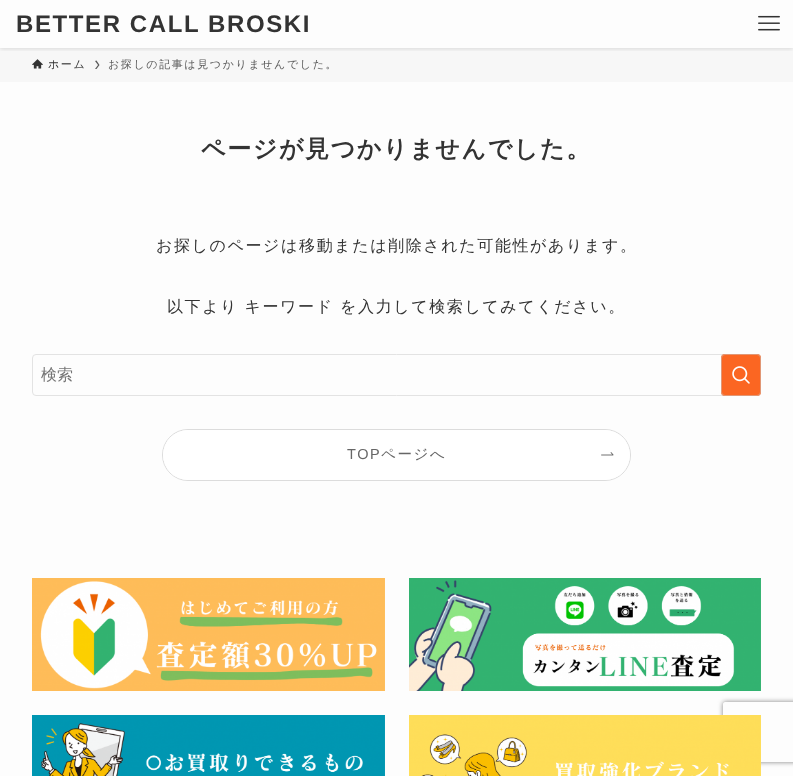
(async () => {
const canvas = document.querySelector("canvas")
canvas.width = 793
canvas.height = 776
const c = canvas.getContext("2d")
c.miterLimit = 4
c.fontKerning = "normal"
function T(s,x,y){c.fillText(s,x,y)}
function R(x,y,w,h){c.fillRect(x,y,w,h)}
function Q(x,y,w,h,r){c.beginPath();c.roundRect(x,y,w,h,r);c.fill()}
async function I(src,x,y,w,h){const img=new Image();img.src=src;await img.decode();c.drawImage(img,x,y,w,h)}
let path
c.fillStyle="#fdfdfd"
R(0,0,793,776)
c.fillStyle="#f7f7f7"
R(0,48,793,34)
c.save()
c.beginPath()
c.rect(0,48,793,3)
c.clip()
c.fillStyle="#0000001f"
c.filter="blur(2px)"
c.beginPath()
c.rect(0,1,793,48)
c.fill()
c.filter="none"
c.restore()
c.letterSpacing="1.6px"
c.font="bold 24px Liberation Sans"
c.fillStyle="#333"
T("BETTER CALL BROSKI",16,32)
await I("1.png",758,15,22,16)
await I("2.png",32,59,11,10)
c.font="500 11px WenQuanYi Zen Hei"
T("ホーム",48,68)
c.fillStyle="#5a5a5a"
path = new Path2D("M96.5 60.5l-1.5 .5l3 4l-3 4h1.5l3-4z")
c.fill(path)
T("お探しの記事は見つかりませんでした。",108,68)
c.font="bold 24px WenQuanYi Zen Hei"
c.fillStyle="#333"
T("ページが見つかりませんでした。",201,157)
c.font="500 16px WenQuanYi Zen Hei"
T("お探しのページは移動または削除された可能性があります。",156,251)
T("以下より キーワード を入力して検索してみてください。",167,312)
c.beginPath()
c.roundRect(32.5,354.5,728,41,3.5)
c.strokeStyle="#e3e3e3"
c.stroke()
c.letterSpacing="0px"
c.fillStyle="#757575"
T("検索",41,380)
c.fillStyle="#fb6622"
Q(721,354,40,42,4)
c.beginPath()
c.roundRect(721.5,354.5,39,41,3.5)
c.strokeStyle="#c7c7c780"
c.stroke()
await I("3.png",732,366,18,18)
c.beginPath()
c.roundRect(162.5,429.5,468,51,25.5)
c.strokeStyle="#dcdcdc"
c.stroke()
c.fillStyle="#fff"
Q(163,430,467,50,25)
c.letterSpacing="1.6px"
c.font="14.5px Liberation Sans"
c.fillStyle="#666"
T("TOP",347,459)
c.font="500 14.5px WenQuanYi Zen Hei"
T("ページへ",381,459)
await I("4.png",601,452,13,4)
await I("5.png",32,578,353,113)
await I("6.png",409,578,352,113)
await I("7.png",32,715,353,61)
c.save()
path = new Path2D("M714 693h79v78h-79zm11 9h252c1 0 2 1 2 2v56c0 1-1 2-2 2h-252c-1 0-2-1-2-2v-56c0-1 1-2 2-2z")
c.clip(path,"evenodd")
c.fillStyle="#808080"
c.filter="blur(2.5px)"
c.beginPath()
c.roundRect(723,702,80,60,2)
c.fill()
c.filter="none"
c.restore()
await I("8.png",409,715,352,61)
})()
